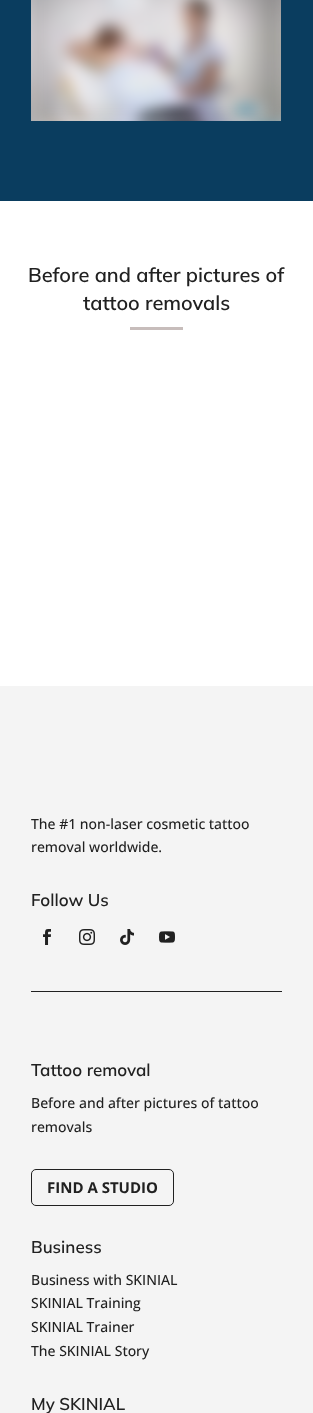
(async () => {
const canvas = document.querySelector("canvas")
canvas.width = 313
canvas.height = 1413
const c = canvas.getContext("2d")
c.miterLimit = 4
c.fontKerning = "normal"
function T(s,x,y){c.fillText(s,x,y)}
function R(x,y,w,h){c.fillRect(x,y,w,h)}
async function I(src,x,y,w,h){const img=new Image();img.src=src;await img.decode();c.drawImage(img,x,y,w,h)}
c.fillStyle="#fff"
R(0,0,313,1413)
c.fillStyle="#0a3d5f"
R(0,0,313,201)
await I("1.png",31,0,250,121)
c.font="600 20px Mulish"
c.fillStyle="#212121"
T("Before and after pictures of",28,282)
T("tattoo removals",83,310)
c.fillStyle="#c7bdbb"
R(130,327,53,3)
c.fillStyle="#f4f4f4"
R(0,686,313,727)
c.font="500 14px Open Sans"
c.fillStyle="#212121"
T("The #1 non-laser cosmetic tattoo",31,829)
T("removal worldwide.",31,852)
c.font="600 17px Mulish"
T("Follow Us",31,906)
await I("2.png",43,929,8,16)
await I("3.png",79,929,16,16)
await I("4.png",120,929,14,16)
await I("5.png",159,931,16,12)
R(31,991,251,1)
T("Tattoo removal",31,1076)
c.font="500 14px Open Sans"
T("Before and after pictures of tattoo",31,1108)
T("removals",31,1132)
c.beginPath()
c.roundRect(31.5,1169.5,142,36,4.5)
c.strokeStyle="#212121"
c.stroke()
c.font="bold 15px Open Sans"
T("FIND A STUDIO",47,1193)
c.font="600 17px Mulish"
T("Business",31,1253)
c.font="500 14px Open Sans"
T("Business with SKINIAL",31,1285)
T("SKINIAL Training",31,1308)
T("SKINIAL Trainer",31,1332)
T("The SKINIAL Story",31,1356)
c.font="600 17px Mulish"
T("My SKINIAL",31,1410)
})()
